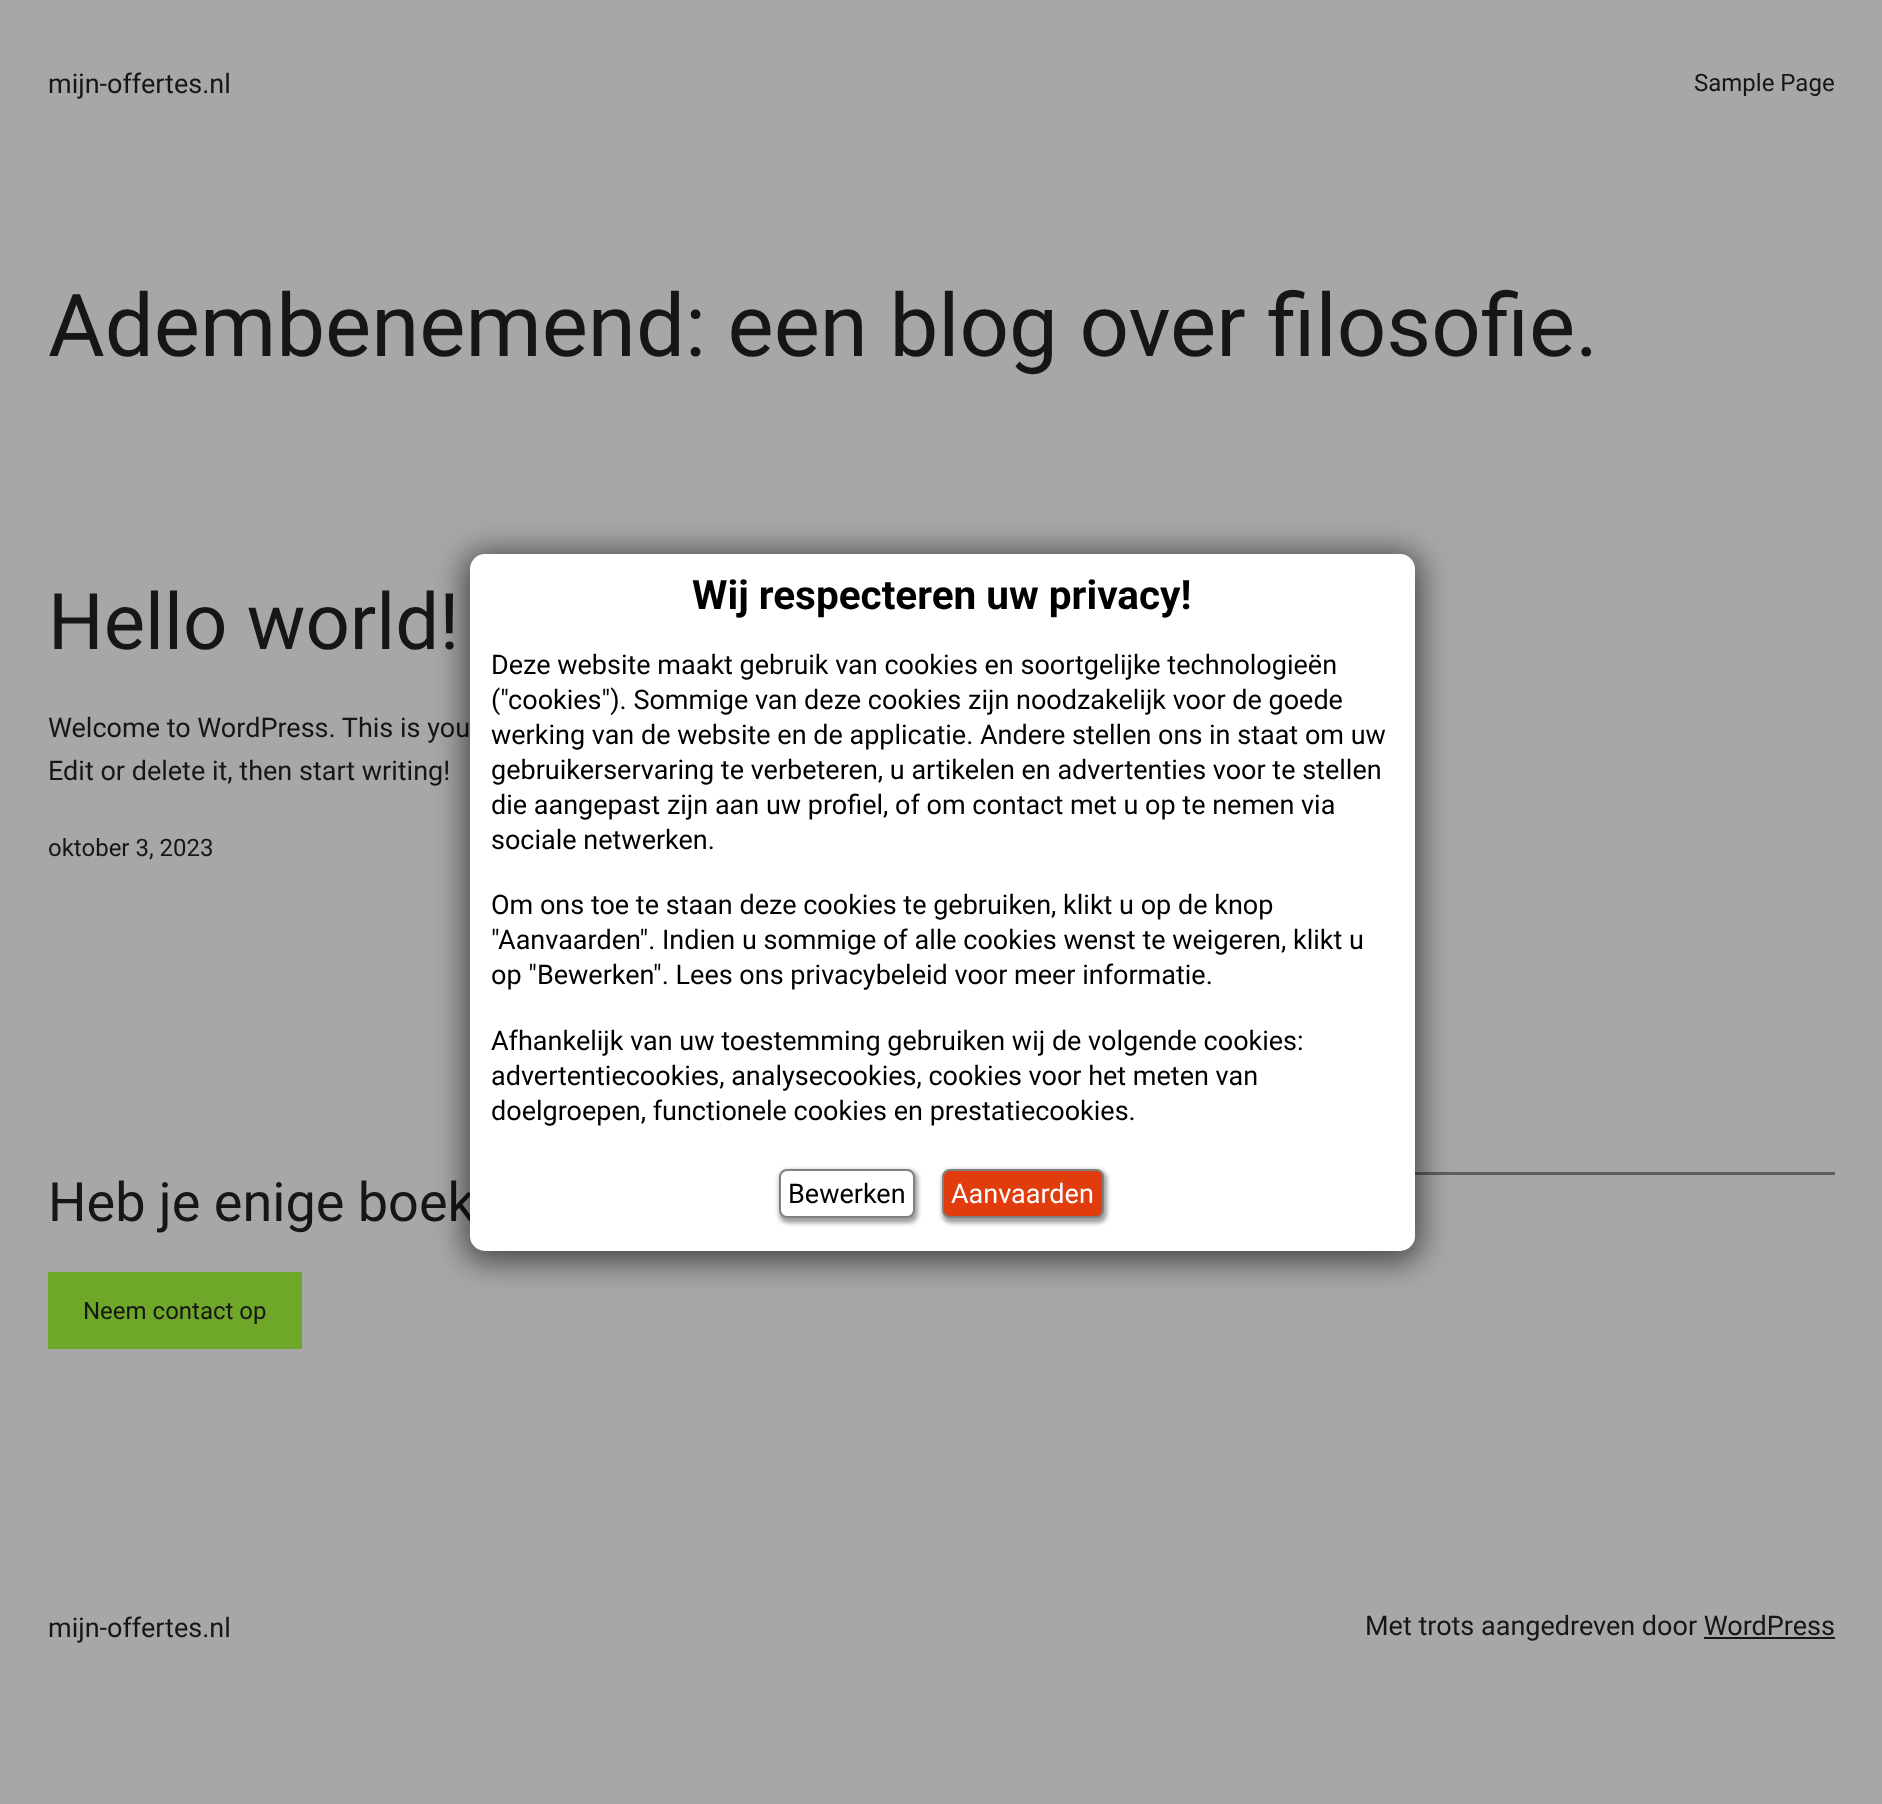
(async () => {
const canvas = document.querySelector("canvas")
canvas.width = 1882
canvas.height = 1804
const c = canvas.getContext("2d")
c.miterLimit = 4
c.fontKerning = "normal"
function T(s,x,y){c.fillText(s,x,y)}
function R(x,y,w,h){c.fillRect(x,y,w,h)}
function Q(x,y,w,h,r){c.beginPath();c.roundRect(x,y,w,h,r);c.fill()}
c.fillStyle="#a7a7a7"
R(0,0,1882,1804)
c.font="27px Roboto"
c.fillStyle="#161616"
T("mijn-offertes.nl",48,93)
c.font="24px Roboto"
T("Sample Page",1694,91)
c.font="87px Roboto"
T("Adembenemend: een blog over filosofie.",48,356)
c.font="78px Roboto"
T("Hello world!",48,649)
c.font="27px Roboto"
T("Welcome to WordPress. This is you",48,737)
T("Edit or delete it, then start writing!",48,780)
c.font="24px Roboto"
T("oktober 3, 2023",48,856)
c.fillStyle="#5f5f5f"
R(1415,1172,420,3)
c.font="54px Roboto"
c.fillStyle="#161616"
T("Heb je enige boek",48,1221)
c.fillStyle="#6fa728"
R(48,1272,254,77)
c.font="24px Roboto"
c.fillStyle="#161616"
T("Neem contact op",83,1319)
c.font="27px Roboto"
T("mijn-offertes.nl",48,1637)
T("Met trots aangedreven door WordPress",1365,1635)
R(1704,1637,131,2)
c.fillStyle="#0000008f"
c.filter="blur(15px)"
c.beginPath()
c.roundRect(464,552,957,710,21)
c.fill()
c.filter="none"
c.fillStyle="#fff"
Q(470,554,945,697,15)
c.font="bold 40.5px Roboto"
c.fillStyle="#000"
T("Wij respecteren uw privacy!",692,609)
c.font="27px Roboto"
T("Deze website maakt gebruik van cookies en soortgelijke technologieën",491,674)
T("(\"cookies\"). Sommige van deze cookies zijn noodzakelijk voor de goede",491,709)
T("werking van de website en de applicatie. Andere stellen ons in staat om uw",491,744)
T("gebruikerservaring te verbeteren, u artikelen en advertenties voor te stellen",491,779)
T("die aangepast zijn aan uw profiel, of om contact met u op te nemen via",491,814)
T("sociale netwerken.",491,849)
T("Om ons toe te staan deze cookies te gebruiken, klikt u op de knop",491,914)
T("\"Aanvaarden\". Indien u sommige of alle cookies wenst te weigeren, klikt u",491,949)
T("op \"Bewerken\". Lees ons privacybeleid voor meer informatie.",491,984)
T("Afhankelijk van uw toestemming gebruiken wij de volgende cookies:",491,1050)
T("advertentiecookies, analysecookies, cookies voor het meten van",491,1085)
T("doelgroepen, functionele cookies en prestatiecookies.",491,1120)
c.fillStyle="#808080bf"
c.filter="blur(2px)"
c.beginPath()
c.roundRect(779,1170,139,53,9)
c.fill()
c.filter="none"
c.fillStyle="#fff"
c.beginPath()
c.roundRect(780,1170,134,47,7)
c.fill()
c.strokeStyle="#808080"
c.lineWidth=2
c.stroke()
c.fillStyle="#000"
T("Bewerken",788,1203)
c.fillStyle="#808080bf"
c.filter="blur(2px)"
c.beginPath()
c.roundRect(942,1170,165,53,9)
c.fill()
c.filter="none"
c.fillStyle="#e13c0e"
c.beginPath()
c.roundRect(943,1170,160,47,7)
c.fill()
c.stroke()
c.fillStyle="#fff"
T("Aanvaarden",951,1203)
})()
